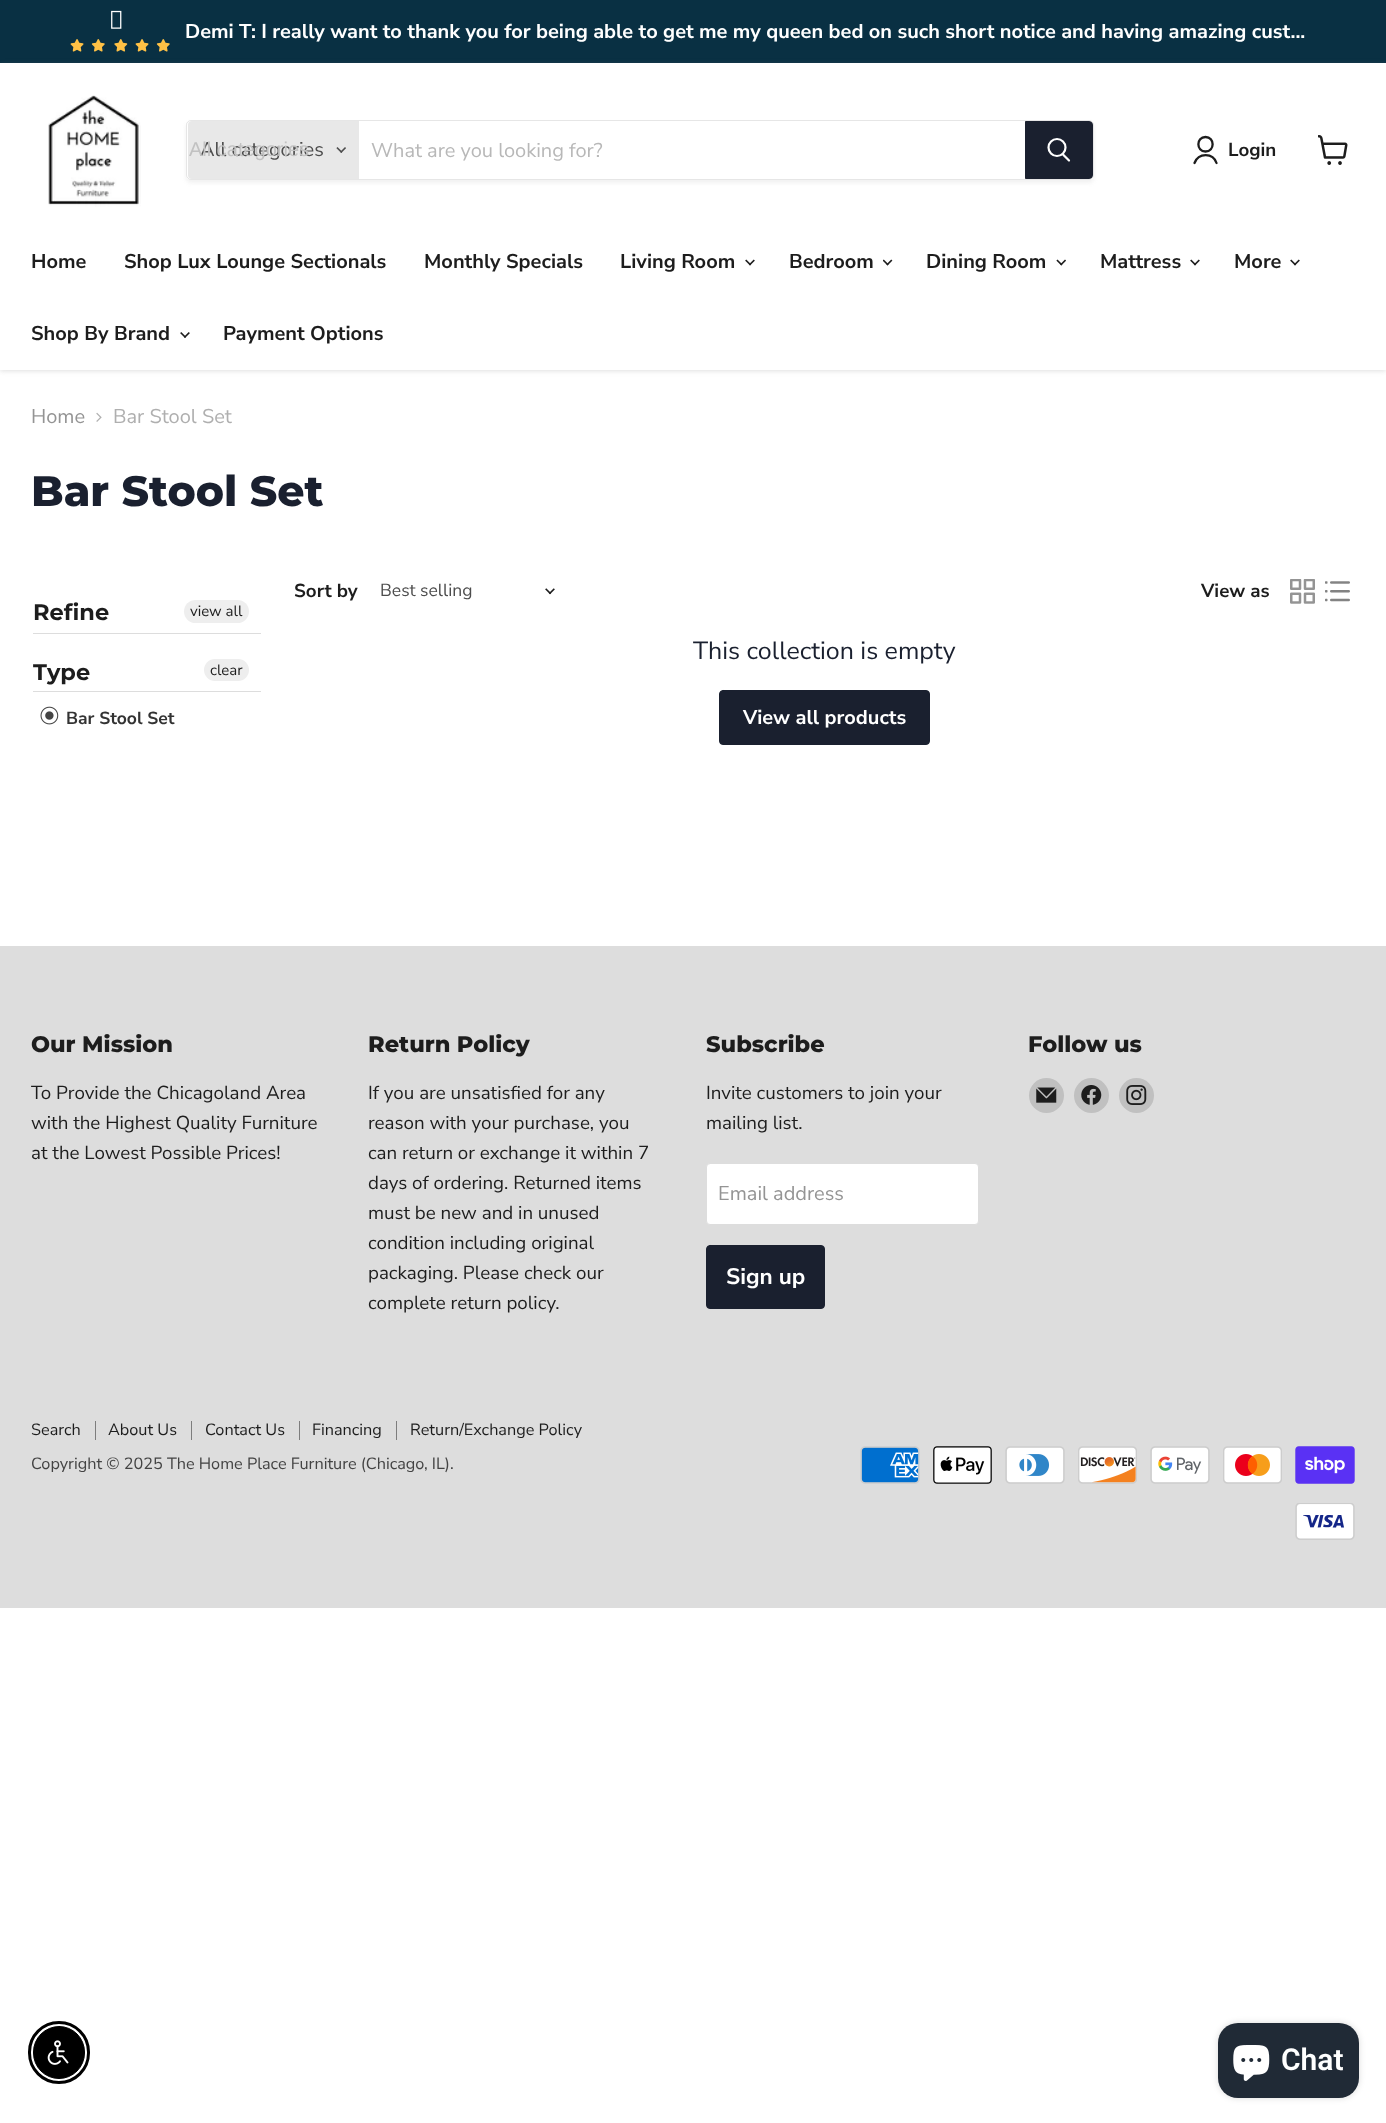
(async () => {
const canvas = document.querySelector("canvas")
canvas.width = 1386
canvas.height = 2123
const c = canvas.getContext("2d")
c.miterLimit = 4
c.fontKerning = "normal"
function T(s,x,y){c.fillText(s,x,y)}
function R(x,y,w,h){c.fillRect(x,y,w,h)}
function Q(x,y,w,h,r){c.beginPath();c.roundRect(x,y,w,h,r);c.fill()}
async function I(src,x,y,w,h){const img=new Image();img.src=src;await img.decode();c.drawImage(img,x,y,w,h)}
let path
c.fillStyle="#fff"
R(0,0,1386,2123)
c.fillStyle="#093043"
R(0,0,1386,63)
await I("1.png",111,10,11,19)
await I("2.png",70,39,14,13)
await I("3.png",91,39,14,13)
await I("4.png",114,39,14,13)
await I("2.png",135,39,14,13)
await I("3.png",156,39,14,13)
c.font="bold 20px Nunito Sans"
c.fillStyle="#fff"
T("Demi T: I really want to thank you for being able to get me my queen bed on such short notice and having amazing cust...",185,38)
c.save()
path = new Path2D("M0 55h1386v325h-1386zm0 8h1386v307h-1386z")
c.clip(path,"evenodd")
c.fillStyle="#80808040"
c.filter="blur(2.5px)"
c.beginPath()
c.rect(0,64,1386,307)
c.fill()
c.filter="none"
c.restore()
await I("5.png",48,95,93,112)
c.save()
path = new Path2D("M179 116h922v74h-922zm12 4h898c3 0 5 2 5 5v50c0 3-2 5-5 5h-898c-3 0-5-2-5-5v-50c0-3 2-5 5-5z")
c.clip(path,"evenodd")
c.fillStyle="#8080801c"
c.filter="blur(2px)"
c.beginPath()
c.roundRect(186,123,908,60,5)
c.fill()
c.filter="none"
c.restore()
c.beginPath()
c.roundRect(186.5,120.5,907,59,4.5)
c.strokeStyle="#80808033"
c.stroke()
c.fillStyle="#e8e8e8"
c.beginPath()
c.roundRect(188,121,171,58,[4,0,0,4])
c.fill()
c.font="20px Nunito Sans"
c.fillStyle="#4d4d4d"
T("All categories",200,156)
c.font="20px Liberation Sans"
c.fillStyle="#c2c2c2"
T("All categories",189,156)
await I("6.png",336,147,10,6)
c.font="20px Nunito Sans"
c.fillStyle="#b8b8b8"
T("What are you looking for?",371,157)
c.fillStyle="#1a202f"
c.beginPath()
c.roundRect(1025.5,121.5,67,57,[0,3.5,3.5,0])
c.fill()
c.strokeStyle="#1a202f"
c.stroke()
path = new Path2D("M1069 160.5l-6-6")
c.strokeStyle="#fff"
c.lineWidth=2.2
c.lineCap="round"
c.stroke(path)
c.beginPath()
c.arc(1057,147.5,8.5,0,7)
c.stroke()
path = new Path2D("M1205.5 151.5c9.5 0 9.5-14.5 0-14.5c-9.5 0-9.5 14.5 0 14.5zm11 11.5c-3.5-10.5-18-10.5-22 0")
c.strokeStyle="#1d1d1d"
c.lineWidth=2.3
c.lineJoin="round"
c.stroke(path)
c.font="bold 18.75px Nunito Sans"
c.fillStyle="#1d1d1d"
T("Login",1228,156)
await I("7.png",1318,135,30,30)
c.font="bold 20px Nunito Sans"
T("Home",31,268)
T("Shop Lux Lounge Sectionals",124,268)
T("Monthly Specials",424,268)
T("Living Room",620,268)
await I("8.png",745,259,10,7)
T("Bedroom",789,268)
await I("9.png",883,259,10,7)
T("Dining Room",926,268)
await I("10.png",1056,259,10,7)
T("Mattress",1100,268)
await I("8.png",1190,259,10,7)
T("More",1234,268)
await I("8.png",1290,259,10,7)
T("Shop By Brand",31,340)
await I("11.png",180,332,10,6)
T("Payment Options",223,340)
c.font="20px Nunito Sans"
c.fillStyle="#949494"
T("Home",31,423)
await I("12.png",96,412,6,10)
c.fillStyle="#afafaf"
T("Bar Stool Set",113,423)
c.font="800 42.5px Montserrat"
c.fillStyle="#1a202f"
T("Bar Stool Set",31,506)
c.fillStyle="#ddd"
R(33,633,228,1)
c.font="bold 22.5px Montserrat"
c.fillStyle="#1d1d1d"
T("Refine",33,620)
c.fillStyle="#eee"
Q(184,600,65,23,11.5)
c.font="15px Nunito Sans"
c.fillStyle="#1d1d1d"
T("view all",190,616)
c.fillStyle="#ddd"
R(33,691,228,1)
c.font="bold 22.5px Montserrat"
c.fillStyle="#1d1d1d"
T("Type",33,680)
c.fillStyle="#eee"
Q(204,659,45,22,11)
c.font="15px Nunito Sans"
c.fillStyle="#1d1d1d"
T("clear",210,675)
await I("13.png",40,706,19,19)
c.font="bold 17.5px Nunito Sans"
c.fillStyle="#333"
T("Bar Stool Set",66,724)
c.font="bold 18.75px Nunito Sans"
c.fillStyle="#1d1d1d"
T("Sort by",294,597)
c.font="17.5px Nunito Sans"
c.fillStyle="#4d4d4d"
T("Best selling",380,596)
await I("14.png",545,588,10,7)
c.font="bold 18.75px Nunito Sans"
c.fillStyle="#1d1d1d"
T("View as",1201,597)
await I("15.png",1290,579,25,25)
await I("16.png",1325,581,25,21)
c.font="25px Nunito Sans"
c.fillStyle="#1a202f"
T("This collection is empty",693,659)
c.beginPath()
c.roundRect(719.5,690.5,210,54,3.5)
c.fill()
c.strokeStyle="#1a202f"
c.lineWidth=1
c.lineJoin="miter"
c.stroke()
c.font="bold 20px Nunito Sans"
c.fillStyle="#fff"
T("View all products",743,724)
c.fillStyle="#ddd"
R(0,946,1386,662)
c.font="800 22.5px Montserrat"
c.fillStyle="#1d1d1d"
T("Our Mission",31,1052)
c.font="18.75px Nunito Sans"
T("To Provide the Chicagoland Area",31,1099)
T("with the Highest Quality Furniture",31,1129)
T("at the Lowest Possible Prices!",31,1159)
c.font="800 22.5px Montserrat"
T("Return Policy",368,1052)
c.font="18.75px Nunito Sans"
T("If you are unsatisfied for any",368,1099)
T("reason with your purchase, you",368,1129)
T("can return or exchange it within 7",368,1159)
T("days of ordering. Returned items",368,1189)
T("must be new and in unused",368,1219)
T("condition including original",368,1249)
T("packaging. Please check our",368,1279)
T("complete return policy.",368,1309)
c.font="800 22.5px Montserrat"
T("Subscribe",706,1052)
c.font="18.75px Nunito Sans"
T("Invite customers to join your",706,1099)
T("mailing list.",706,1129)
c.fillStyle="#fff"
c.beginPath()
c.roundRect(706.5,1163.5,272,61,3.5)
c.fill()
c.strokeStyle="#ddd"
c.stroke()
c.font="20px Nunito Sans"
c.fillStyle="#949494"
T("Email address",718,1200)
c.fillStyle="#1a202f"
c.beginPath()
c.roundRect(706.5,1245.5,118,63,3.5)
c.fill()
c.strokeStyle="#1a202f"
c.stroke()
c.font="bold 22.5px Nunito Sans"
c.fillStyle="#fff"
T("Sign up",726,1284)
c.font="800 22.5px Montserrat"
c.fillStyle="#1d1d1d"
T("Follow us",1028,1052)
c.fillStyle="#c0c0c0"
c.beginPath()
c.arc(1046.5,1095.5,17.5,0,7)
c.fill()
await I("17.png",1036,1087,21,16)
c.beginPath()
c.arc(1091.5,1095.5,17.5,0,7)
c.fill()
await I("18.png",1081,1085,21,20)
c.beginPath()
c.arc(1136.5,1095.5,17.5,0,7)
c.fill()
await I("19.png",1126,1085,21,20)
c.fillStyle="#7d7d7d"
R(95,1421,1,19)
c.font="16.25px Nunito Sans"
c.fillStyle="#1d1d1d"
T("Search",31,1435)
c.fillStyle="#7d7d7d"
R(191,1421,1,19)
c.fillStyle="#1d1d1d"
T("About Us",108,1435)
c.fillStyle="#7d7d7d"
R(299,1421,1,19)
c.fillStyle="#1d1d1d"
T("Contact Us",205,1435)
c.fillStyle="#7d7d7d"
R(396,1421,1,19)
c.fillStyle="#1d1d1d"
T("Financing",312,1435)
T("Return/Exchange Policy",410,1435)
c.fillStyle="#434343"
T("Copyright © 2025 The Home Place Furniture (Chicago, IL).",31,1469)
await I("20.png",860,1446,60,38)
await I("21.png",933,1446,59,38)
await I("22.png",1005,1446,60,38)
await I("23.png",1078,1446,59,38)
await I("24.png",1150,1446,60,38)
await I("25.png",1223,1446,59,38)
await I("26.png",1295,1446,60,38)
await I("27.png",1295,1503,60,37)
c.beginPath()
c.roundRect(29.5,2022.5,59,60,29.5)
c.strokeStyle="#000"
c.lineWidth=3
c.stroke()
c.fillStyle="#000"
c.beginPath()
c.roundRect(33.5,2026.5,51,52,25.5)
c.fill()
c.lineWidth=1
c.stroke()
await I("28.png",47,2040,22,25)
c.fillStyle="#00000026"
c.filter="blur(3px)"
c.beginPath()
c.roundRect(1218,2023,141,75,20)
c.fill()
c.filter="none"
c.fillStyle="#202a36"
Q(1218,2023,141,75,20)
await I("29.png",1233,2045,37,36)
c.font="600 30px Roboto"
c.fillStyle="#fff"
T("Chat",1281,2070)
})()
